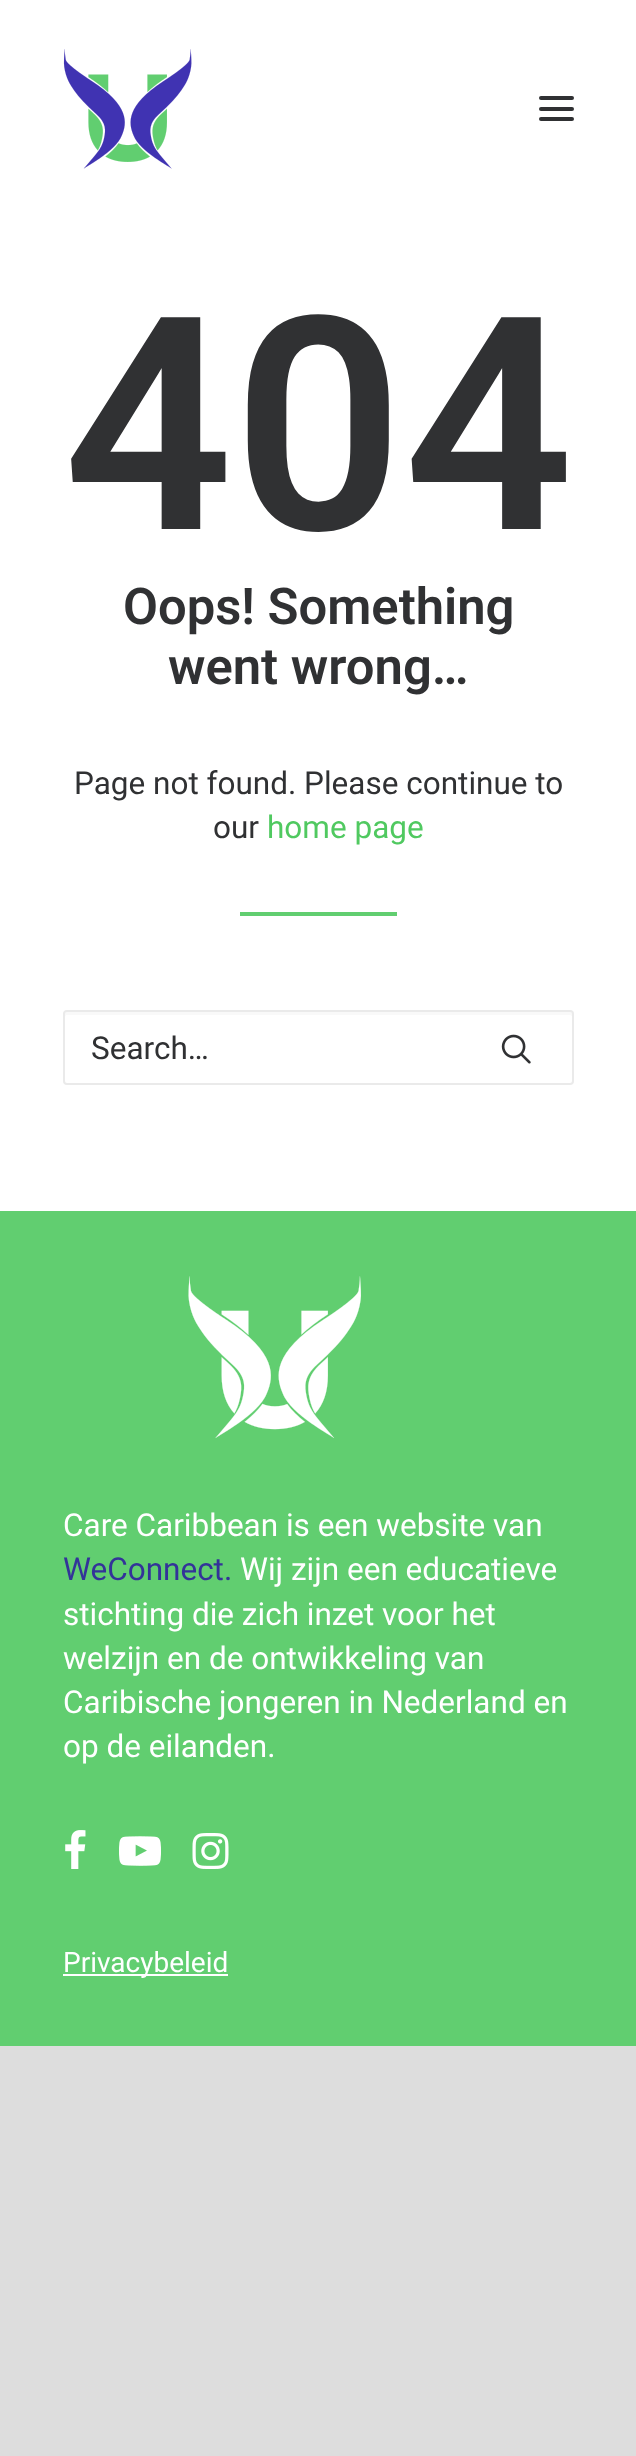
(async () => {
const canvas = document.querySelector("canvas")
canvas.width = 636
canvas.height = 2456
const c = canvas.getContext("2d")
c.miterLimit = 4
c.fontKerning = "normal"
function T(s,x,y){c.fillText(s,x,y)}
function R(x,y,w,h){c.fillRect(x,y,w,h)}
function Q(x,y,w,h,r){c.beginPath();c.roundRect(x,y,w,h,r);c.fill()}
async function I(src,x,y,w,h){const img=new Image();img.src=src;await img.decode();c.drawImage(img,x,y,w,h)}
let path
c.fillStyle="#ddd"
R(0,0,636,2456)
c.fillStyle="#fff"
R(0,0,636,1211)
await I("1.png",63,49,129,120)
c.fillStyle="#303133"
Q(539,107,35,4,2)
Q(539,96,35,4,2)
Q(539,117,35,4,2)
c.font="600 298px Roboto"
T("404",63,529)
c.font="600 50.75px Roboto"
T("Oops! Something",123,624)
T("went wrong…",168,684)
c.font="31.5px Roboto"
T("Page not found. Please continue to",74,794)
T("our",213,838)
c.fillStyle="#50c960"
T("home page",267,838)
c.fillStyle="#61ce70"
R(240,912,157,4)
c.fillStyle="#f9f9f9"
path = new Path2D("M66 1015h504c1 0 2 1 2 2v-3c0-1-1-2-2-2h-503c-1 0-2 1-2 2v3z")
c.fill(path)
c.beginPath()
c.roundRect(64,1011,509,73,3)
c.strokeStyle="#eaeaea"
c.lineWidth=2
c.stroke()
c.fillStyle="#303133"
T("Search…",91,1059)
await I("2.png",501,1034,30,30)
c.fillStyle="#61ce70"
R(0,1211,636,835)
await I("3.png",188,1276,173,163)
c.fillStyle="#fff"
T("Care Caribbean is een website van",63,1536)
c.fillStyle="#339"
T("WeConnect.",63,1580)
c.fillStyle="#fff"
T("Wij zijn een educatieve",240,1580)
T("stichting die zich inzet voor het",63,1625)
T("welzijn en de ontwikkeling van",63,1669)
T("Caribische jongeren in Nederland en",63,1713)
T("op de eilanden.",63,1757)
await I("4.png",65,1830,21,39)
await I("5.png",119,1836,42,30)
await I("6.png",192,1833,37,36)
R(63,1974,165,2)
c.font="28px Roboto"
T("Privacybeleid",63,1972)
})()
